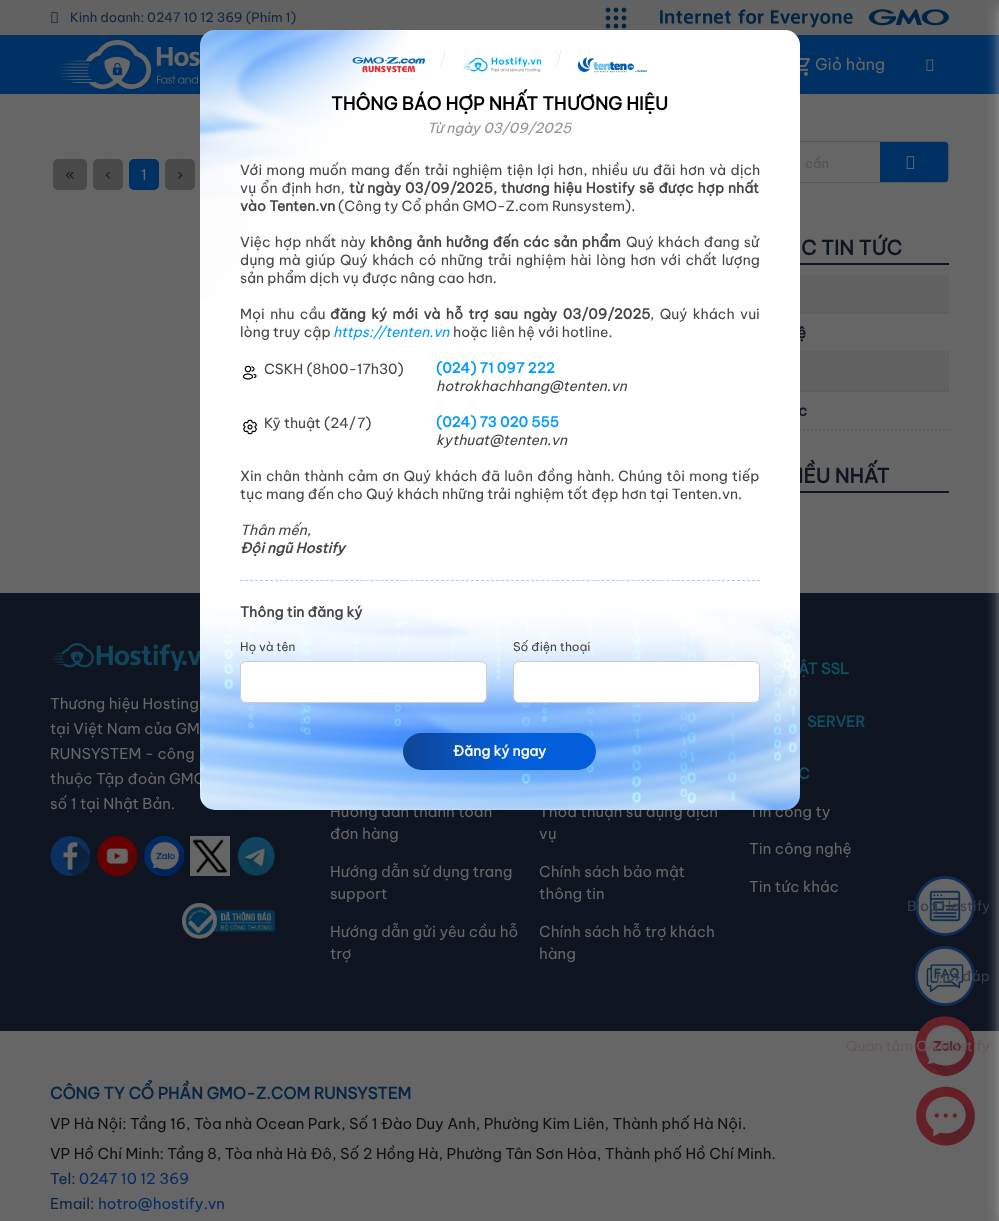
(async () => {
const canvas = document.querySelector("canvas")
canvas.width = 999
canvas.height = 1221
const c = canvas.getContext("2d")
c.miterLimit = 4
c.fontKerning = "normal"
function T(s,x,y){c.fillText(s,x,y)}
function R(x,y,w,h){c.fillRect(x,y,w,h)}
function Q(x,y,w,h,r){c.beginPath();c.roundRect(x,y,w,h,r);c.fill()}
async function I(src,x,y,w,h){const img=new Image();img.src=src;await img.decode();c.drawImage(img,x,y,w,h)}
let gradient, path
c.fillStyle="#666"
R(0,0,999,1221)
c.fillStyle="#626262"
R(0,0,999,35)
await I("1.png",605,7,22,22)
await I("2.png",660,9,289,19)
await I("3.png",51,12,7,11)
c.font="13px Be Vietnam Pro"
c.fillStyle="#10263e"
T("Kinh doanh: 0247 10 12 369 (Phím 1)",70,22)
c.fillStyle="#003165"
R(0,35,999,59)
await I("4.png",58,40,142,49)
await I("5.png",800,58,10,18)
c.font="16px Be Vietnam Pro"
c.fillStyle="#666"
T("Giỏ hàng",815,70)
await I("6.png",926,59,8,12)
c.fillStyle="#0e1420"
R(0,593,999,438)
c.fillStyle="#aaa"
c.filter="blur(7.5px)"
c.beginPath()
c.rect(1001,7,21,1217)
c.fill()
c.filter="none"
c.beginPath()
c.roundRect(679.5,141.5,269,41,4.5)
c.strokeStyle="#565655"
c.stroke()
c.fillStyle="#616162"
R(800,275,149,39)
path = new Path2D("M679 313h270")
c.strokeStyle="#5c5c5c"
c.lineWidth=2
c.setLineDash([2,2])
c.stroke(path)
path = new Path2D("M679 352h270")
c.stroke(path)
c.font="bold 15px Be Vietnam Pro"
c.fillStyle="#0e1420"
T("ệ",797,338)
c.fillStyle="#616162"
R(800,353,149,39)
path = new Path2D("M679 391h270")
c.stroke(path)
path = new Path2D("M679 430h270")
c.stroke(path)
c.fillStyle="#0e1420"
T("c",798,416)
c.font="bold 20px Be Vietnam Pro"
T("IỀU NHẤT",798,483)
c.font="15px Be Vietnam Pro"
c.fillStyle="#666"
T("thuộc Tập đoàn GMO",50,784)
c.font="bold 15px Be Vietnam Pro"
c.fillStyle="#105066"
T("ẬT SSL",798,674)
c.font="15px Be Vietnam Pro"
c.fillStyle="#666"
T("Hướng dẫn thanh toán",330,817)
T("Thỏa thuận sử dụng dịch",539,817)
c.font="bold 15px Be Vietnam Pro"
c.fillStyle="#105066"
T("C",798,779)
c.font="15px Be Vietnam Pro"
c.fillStyle="#666"
T("Tin công ty",749,817)
await I("7.png",200,30,600,780)
await I("8.png",352,57,73,16)
c.fillStyle="#eaeaea"
path = new Path2D("M446 47c-3 7.5-5 15.5-6.5 23c3-7.5 5-15 6.5-23z")
c.fill(path)
await I("9.png",462,57,80,16)
path = new Path2D("M562 47c-3 7.5-5 15.5-6.5 23c3-7.5 5-15 6.5-23z")
c.fill(path)
await I("10.png",577,57,70,16)
c.font="bold 18px Be Vietnam Pro"
c.fillStyle="#000"
T("THÔNG BÁO HỢP NHẤT THƯƠNG HIỆU",331,110)
c.font="italic 14px Be Vietnam Pro"
c.fillStyle="#939393"
T("Từ ngày 03/09/2025",427,133)
path = new Path2D("M240 580.5h520")
c.strokeStyle="#9dd0ff"
c.lineWidth=1
c.setLineDash([3,2.02])
c.stroke(path)
c.wordSpacing="1.1px"
c.font="14px Be Vietnam Pro"
c.fillStyle="#444"
T("Với mong muốn mang đến trải nghiệm tiện lợi hơn, nhiều ưu đãi hơn và dịch",240,175)
c.wordSpacing="0.75px"
T("vụ ổn định hơn,",240,193)
c.font="bold 14px Be Vietnam Pro"
T("từ ngày 03/09/2025, thương hiệu Hostify sẽ được hợp nhất",349,193)
c.wordSpacing="0px"
T("vào Tenten.vn",240,211)
c.font="14px Be Vietnam Pro"
T("(Công ty Cổ phần GMO-Z.com Runsystem).",338,211)
c.wordSpacing="1px"
T("Việc hợp nhất này",240,247)
c.font="bold 14px Be Vietnam Pro"
T("không ảnh hưởng đến các sản phẩm",370,247)
c.font="14px Be Vietnam Pro"
T("Quý khách đang sử",626,247)
c.wordSpacing="0px"
T("dụng",240,265)
c.wordSpacing="1.4px"
T("mà giúp Quý khách có những trải nghiệm hài lòng hơn với chất lượng",279,265)
c.wordSpacing="0px"
T("sản phẩm dịch vụ được nâng cao hơn.",240,283)
c.wordSpacing="2.25px"
T("Mọi nhu cầu",240,319)
c.font="bold 14px Be Vietnam Pro"
T("đăng ký mới và hỗ trợ sau ngày 03/09/2025",330,319)
c.font="14px Be Vietnam Pro"
T(", Quý khách vui",650,319)
c.wordSpacing="0px"
T("lòng truy cập",240,337)
c.font="italic 14px Be Vietnam Pro"
c.fillStyle="#009bff"
T("https://tenten.vn",333,337)
c.font="14px Be Vietnam Pro"
c.fillStyle="#444"
T("hoặc liên hệ với hotline.",453,337)
await I("11.png",242,365,15,15)
T("CSKH (8h00-17h30)",264,374)
c.font="bold 14px Be Vietnam Pro"
c.fillStyle="#009bff"
T("(024) 71 097 222",436,373)
c.font="italic 14px Be Vietnam Pro"
c.fillStyle="#444"
T("hotrokhachhang@tenten.vn",436,391)
await I("12.png",243,419,14,16)
c.font="14px Be Vietnam Pro"
T("Kỹ thuật (24/7)",264,428)
c.font="bold 14px Be Vietnam Pro"
c.fillStyle="#009bff"
T("(024) 73 020 555",436,427)
c.font="italic 14px Be Vietnam Pro"
c.fillStyle="#444"
T("kythuat@tenten.vn",436,445)
c.wordSpacing="1px"
c.font="14px Be Vietnam Pro"
T("Xin chân thành cảm ơn Quý khách đã luôn đồng hành.",240,481)
T("Chúng tôi mong tiếp",618,481)
c.wordSpacing="0px"
T("tục mang đến cho Quý khách những trải nghiệm tốt đẹp hơn tại Tenten.vn.",240,499)
c.font="italic 14px Be Vietnam Pro"
T("Thân mến,",240,535)
c.font="italic bold 14px Be Vietnam Pro"
T("Đội ngũ Hostify",240,553)
c.font="bold 14px Be Vietnam Pro"
T("Thông tin đăng ký",240,617)
c.font="12px Be Vietnam Pro"
T("Họ và tên",240,651)
c.fillStyle="#fff"
c.beginPath()
c.roundRect(240.5,661.5,246,41,5.5)
c.fill()
c.strokeStyle="#ccc"
c.setLineDash([])
c.stroke()
c.fillStyle="#444"
T("Số điện thoại",513,651)
c.fillStyle="#fff"
c.beginPath()
c.roundRect(513.5,661.5,246,41,5.5)
c.fill()
c.stroke()
gradient = c.createLinearGradient(289,746,596,754)
gradient.addColorStop(0,"#192a48")
gradient.addColorStop(.72,"#025edb")
c.fillStyle = gradient
Q(403,733,193,37,18.5)
c.font="bold 14px Be Vietnam Pro"
c.fillStyle="#fff"
T("Đăng ký ngay",453,756)
c.fillStyle="#494949"
Q(53,159,34,31,5)
c.font="15px Be Vietnam Pro"
c.fillStyle="#1b1b1b"
T("«",65,180)
c.fillStyle="#494949"
Q(93,159,30,31,5)
c.fillStyle="#1b1b1b"
T("‹",105,180)
c.fillStyle="#003165"
Q(129,159,30,31,5)
c.fillStyle="#666"
T("1",141,180)
c.fillStyle="#494949"
Q(165,159,30,31,5)
c.fillStyle="#1b1b1b"
T("›",177,180)
c.font="13px Be Vietnam Pro"
c.fillStyle="#525252"
T("cần",805,168)
c.fillStyle="#003165"
c.beginPath()
c.roundRect(880,142,68,40,[0,3,3,0])
c.fill()
await I("13.png",906,156,9,13)
c.fillStyle="#0e1420"
R(800,263,149,2)
c.font="bold 20px Be Vietnam Pro"
T("C TIN TỨC",801,255)
R(800,491,149,2)
await I("14.png",50,643,150,28)
c.font="15px Be Vietnam Pro"
c.fillStyle="#666"
T("Thương hiệu Hosting",50,709)
T("tại Việt Nam của GM",50,734)
T("RUNSYSTEM - công",50,759)
T("số 1 tại Nhật Bản.",50,809)
await I("15.png",50,836,40,40)
await I("16.png",97,836,40,40)
await I("17.png",144,836,40,40)
await I("18.png",190,836,40,40)
await I("19.png",237,836,38,40)
await I("20.png",182,903,93,36)
c.font="bold 15px Be Vietnam Pro"
c.fillStyle="#105066"
T("SERVER",807,727)
c.font="15px Be Vietnam Pro"
c.fillStyle="#666"
T("đơn hàng",330,839)
T("Hướng dẫn sử dụng trang",330,877)
T("support",330,899)
T("Hướng dẫn gửi yêu cầu hỗ",330,937)
T("trợ",330,959)
T("vụ",539,839)
T("Chính sách bảo mật",539,877)
T("thông tin",539,899)
T("Chính sách hỗ trợ khách",539,937)
T("hàng",539,959)
T("Tin công nghệ",749,854)
T("Tin tức khác",749,892)
await I("21.png",915,876,60,60)
c.font="14px Be Vietnam Pro"
c.fillStyle="#343d49"
T("Blog Hostify",907,911)
await I("22.png",915,946,60,60)
T("Hỏi đáp",936,981)
await I("23.png",915,1016,60,60)
c.fillStyle="#645759"
T("Quan tâm OA Hostify",846,1051)
c.font="bold 16px Be Vietnam Pro"
c.fillStyle="#062544"
T("CÔNG TY CỔ PHẦN GMO-Z.COM RUNSYSTEM",50,1099)
c.font="15px Be Vietnam Pro"
c.fillStyle="#101010"
T("VP Hà Nội: Tầng 16, Tòa nhà Ocean Park, Số 1 Đào Duy Anh, Phường Kim Liên, Thành phố Hà Nội.",50,1129)
T("VP Hồ Chí Minh: Tầng 8, Tòa nhà Hà Đô, Số 2 Hồng Hà, Phường Tân Sơn Hòa, Thành phố Hồ Chí Minh.",50,1159)
c.fillStyle="#062544"
T("Tel:",50,1184)
c.fillStyle="#052c65"
T("0247 10 12 369",79,1184)
c.fillStyle="#062544"
T("Email:",50,1209)
c.fillStyle="#052c65"
T("hotro@hostify.vn",98,1209)
await I("24.png",916,1086,59,60)
})()
